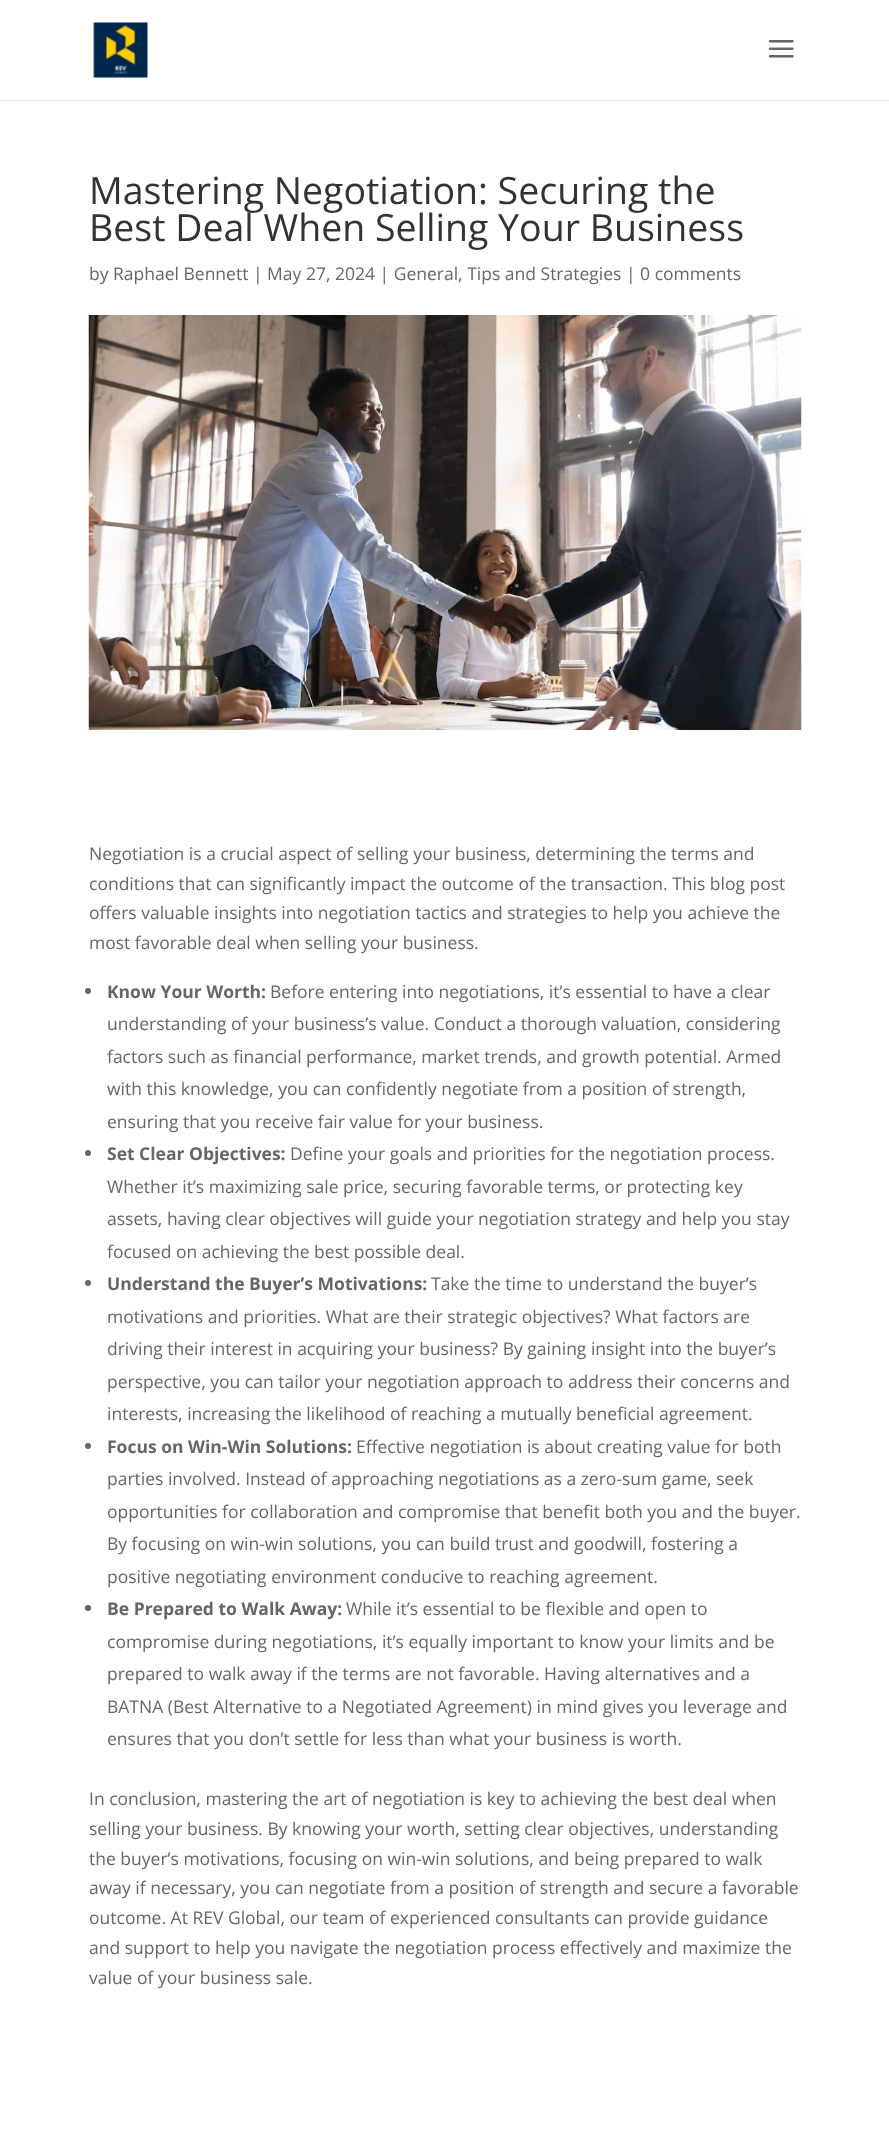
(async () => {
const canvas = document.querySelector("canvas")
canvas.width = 889
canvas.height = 2143
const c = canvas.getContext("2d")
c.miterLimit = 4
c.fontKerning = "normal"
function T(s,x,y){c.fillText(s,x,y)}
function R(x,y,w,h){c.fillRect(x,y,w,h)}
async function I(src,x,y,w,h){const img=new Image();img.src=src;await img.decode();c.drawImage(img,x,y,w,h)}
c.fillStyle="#fff"
R(0,0,889,2143)
c.fillStyle="#e6e6e6"
R(0,100,889,1)
await I("1.png",93,22,55,56)
await I("2.png",768,40,26,18)
c.font="37.5px Open Sans"
c.fillStyle="#333"
T("Mastering Negotiation: Securing the",89,204)
T("Best Deal When Selling Your Business",89,241)
c.font="17.5px Open Sans"
c.fillStyle="#666"
T("by Raphael Bennett | May 27, 2024 | General, Tips and Strategies | 0 comments",89,280)
await I("3.png",88,315,714,415)
T("Negotiation is a crucial aspect of selling your business, determining the terms and",89,860)
T("conditions that can significantly impact the outcome of the transaction. This blog post",89,890)
T("offers valuable insights into negotiation tactics and strategies to help you achieve the",89,919)
T("most favorable deal when selling your business.",89,949)
c.beginPath()
c.arc(88,991,3,0,7)
c.fill()
c.font="bold 17.5px Open Sans"
T("Know Your Worth:",107,998)
c.font="17.5px Open Sans"
T("Before entering into negotiations, it’s essential to have a clear",270,998)
T("understanding of your business’s value. Conduct a thorough valuation, considering",107,1030)
T("factors such as financial performance, market trends, and growth potential. Armed",107,1063)
T("with this knowledge, you can confidently negotiate from a position of strength,",107,1095)
T("ensuring that you receive fair value for your business.",107,1128)
c.beginPath()
c.arc(88,1153,3,0,7)
c.fill()
c.font="bold 17.5px Open Sans"
T("Set Clear Objectives:",107,1160)
c.font="17.5px Open Sans"
T("Define your goals and priorities for the negotiation process.",290,1160)
T("Whether it’s maximizing sale price, securing favorable terms, or protecting key",107,1193)
T("assets, having clear objectives will guide your negotiation strategy and help you stay",107,1225)
T("focused on achieving the best possible deal.",107,1258)
c.beginPath()
c.arc(88,1283,3,0,7)
c.fill()
c.font="bold 17.5px Open Sans"
T("Understand the Buyer’s Motivations:",107,1290)
c.font="17.5px Open Sans"
T("Take the time to understand the buyer’s",431,1290)
T("motivations and priorities. What are their strategic objectives? What factors are",107,1323)
T("driving their interest in acquiring your business? By gaining insight into the buyer’s",107,1355)
T("perspective, you can tailor your negotiation approach to address their concerns and",107,1388)
T("interests, increasing the likelihood of reaching a mutually beneficial agreement.",107,1420)
c.beginPath()
c.arc(88,1446,3,0,7)
c.fill()
c.font="bold 17.5px Open Sans"
T("Focus on Win-Win Solutions:",107,1453)
c.font="17.5px Open Sans"
T("Effective negotiation is about creating value for both",356,1453)
T("parties involved. Instead of approaching negotiations as a zero-sum game, seek",107,1485)
T("opportunities for collaboration and compromise that benefit both you and the buyer.",107,1518)
T("By focusing on win-win solutions, you can build trust and goodwill, fostering a",107,1550)
T("positive negotiating environment conducive to reaching agreement.",107,1583)
c.beginPath()
c.arc(88,1608,3,0,7)
c.fill()
c.font="bold 17.5px Open Sans"
T("Be Prepared to Walk Away:",107,1615)
c.font="17.5px Open Sans"
T("While it’s essential to be flexible and open to",346,1615)
T("compromise during negotiations, it’s equally important to know your limits and be",107,1648)
T("prepared to walk away if the terms are not favorable. Having alternatives and a",107,1680)
T("BATNA (Best Alternative to a Negotiated Agreement) in mind gives you leverage and",107,1713)
T("ensures that you don’t settle for less than what your business is worth.",107,1745)
T("In conclusion, mastering the art of negotiation is key to achieving the best deal when",89,1805)
T("selling your business. By knowing your worth, setting clear objectives, understanding",89,1835)
T("the buyer’s motivations, focusing on win-win solutions, and being prepared to walk",89,1865)
T("away if necessary, you can negotiate from a position of strength and secure a favorable",89,1894)
T("outcome. At REV Global, our team of experienced consultants can provide guidance",89,1924)
T("and support to help you navigate the negotiation process effectively and maximize the",89,1954)
T("value of your business sale.",89,1984)
})()
